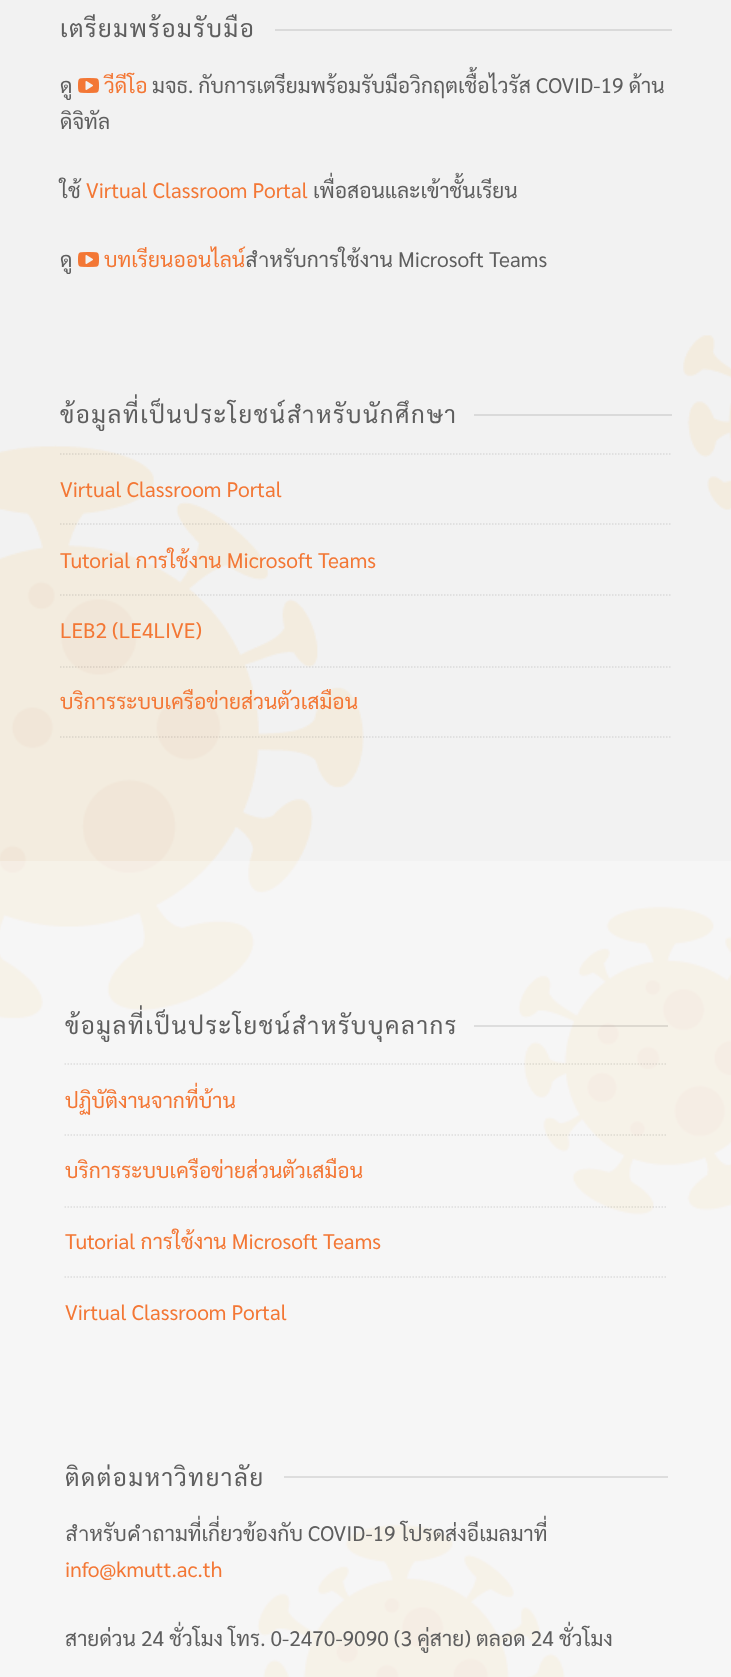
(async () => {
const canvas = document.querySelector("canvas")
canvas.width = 731
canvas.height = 1677
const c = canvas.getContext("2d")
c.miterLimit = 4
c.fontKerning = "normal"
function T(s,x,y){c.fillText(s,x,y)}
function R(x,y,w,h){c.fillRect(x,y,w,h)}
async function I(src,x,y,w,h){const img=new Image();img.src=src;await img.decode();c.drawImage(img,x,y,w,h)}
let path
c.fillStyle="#f2f2f2"
R(0,0,731,1677)
await I("1.png",0,335,731,1342)
c.letterSpacing="1.5px"
c.font="24px Sarabun"
c.fillStyle="#5e5e5e"
T("เตรียมพร้อมรับมือ",60,37)
c.fillStyle="#dadada"
R(275,29,397,2)
c.letterSpacing="0px"
c.font="21px Sarabun"
c.fillStyle="#5e5e5e"
T("ดู",60,93)
c.fillStyle="#f37735"
T("วีดีโอ",104,93)
await I("2.png",78,78,21,15)
c.fillStyle="#5e5e5e"
T("มจธ. กับการเตรียมพร้อมรับมือวิกฤตเชื้อไวรัส COVID-19 ด้าน",152,93)
T("ดิจิทัล",60,129)
T("ใช้",60,198)
c.fillStyle="#f37735"
T("Virtual Classroom Portal",86,198)
c.fillStyle="#5e5e5e"
T("เพื่อสอนและเข้าชั้นเรียน",313,198)
T("ดู",60,267)
await I("3.png",78,252,21,15)
c.fillStyle="#f37735"
T("บทเรียนออนไลน์",104,267)
c.fillStyle="#5e5e5e"
T("สำหรับการใช้งาน Microsoft Teams",245,267)
c.save()
c.beginPath()
c.rect(60,393,612,41)
c.clip()
c.letterSpacing="1.5px"
c.font="24px Sarabun"
T("ข้อมูลที่เป็นประโยชน์สำหรับนักศึกษา",60,423)
c.restore()
c.fillStyle="#dadada"
R(474,414,198,2)
path = new Path2D("M60 454h612")
c.strokeStyle="#0000001a"
c.lineWidth=1.5
c.setLineDash([1.5,1.5])
c.stroke(path)
c.fillStyle="#f37735"
T("Virtual Classroom Portal",60,497)
path = new Path2D("M60 524h612")
c.stroke(path)
T("Tutorial การใช้งาน Microsoft Teams",60,568)
path = new Path2D("M60 595h612")
c.stroke(path)
T("LEB2 (LE4LIVE)",60,638)
path = new Path2D("M60 667h612")
c.stroke(path)
T("บริการระบบเครือข่ายส่วนตัวเสมือน",60,709)
path = new Path2D("M60 737h612")
c.stroke(path)
c.fillStyle="#ffffff4d"
R(0,861,731,816)
c.save()
c.beginPath()
c.rect(65,1004,603,40)
c.clip()
c.letterSpacing="1.5px"
c.font="24px Sarabun"
c.fillStyle="#5e5e5e"
T("ข้อมูลที่เป็นประโยชน์สำหรับบุคลากร",65,1034)
c.restore()
c.fillStyle="#0000001a"
R(474,1025,194,2)
path = new Path2D("M64.5 1064h603")
c.stroke(path)
c.fillStyle="#f37735"
T("ปฏิบัติงานจากที่บ้าน",65,1108)
path = new Path2D("M64.5 1135h603")
c.stroke(path)
T("บริการระบบเครือข่ายส่วนตัวเสมือน",65,1178)
path = new Path2D("M64.5 1207h603")
c.stroke(path)
T("Tutorial การใช้งาน Microsoft Teams",65,1249)
path = new Path2D("M64.5 1277h603")
c.strokeStyle="#ddd"
c.stroke(path)
T("Virtual Classroom Portal",65,1320)
c.save()
c.beginPath()
c.rect(65,1455,603,42)
c.clip()
c.letterSpacing="1.5px"
c.font="24px Sarabun"
c.fillStyle="#5e5e5e"
T("ติดต่อมหาวิทยาลัย",65,1486)
c.restore()
c.fillStyle="#ddd"
R(284,1476,384,2)
c.save()
c.beginPath()
c.rect(65,1437,603,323)
c.clip()
c.fillStyle="#5e5e5e"
T("สำหรับคำถามที่เกี่ยวข้องกับ COVID-19 โปรดส่งอีเมลมาที่",65,1541)
c.restore()
c.fillStyle="#f37735"
T("info@kmutt.ac.th",65,1577)
c.fillStyle="#5e5e5e"
T("สายด่วน 24 ชั่วโมง โทร. 0-2470-9090 (3 คู่สาย) ตลอด 24 ชั่วโมง",65,1646)
})()
